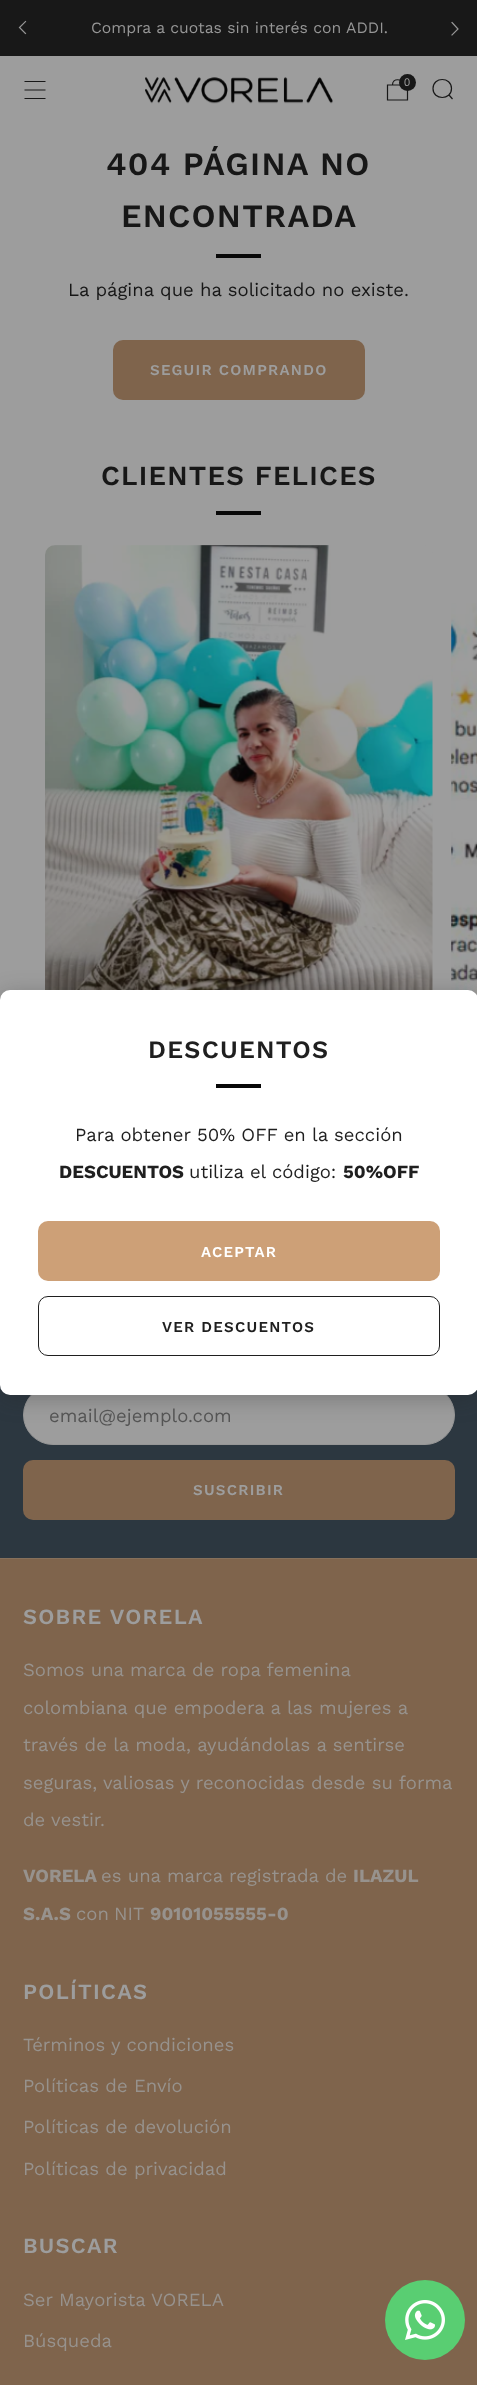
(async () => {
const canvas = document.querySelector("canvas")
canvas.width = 477
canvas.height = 2385
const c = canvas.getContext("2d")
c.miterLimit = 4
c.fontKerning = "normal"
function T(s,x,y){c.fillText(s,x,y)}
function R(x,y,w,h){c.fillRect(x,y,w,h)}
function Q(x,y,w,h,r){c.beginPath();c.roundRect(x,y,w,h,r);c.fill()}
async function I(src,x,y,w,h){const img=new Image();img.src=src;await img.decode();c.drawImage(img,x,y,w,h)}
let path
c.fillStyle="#9d9d9d"
R(0,0,477,2385)
c.fillStyle="#181818"
R(0,0,477,56)
path = new Path2D("M25.5 33.5l-6-6l6-6")
c.strokeStyle="#969696"
c.lineWidth=1.2
c.lineCap="square"
c.stroke(path)
c.font="15.75px Work Sans"
c.fillStyle="#969696"
T("Compra a cuotas sin interés con ADDI.",91,33)
path = new Path2D("M452 22.5l6 6.5l-6 6")
c.stroke(path)
path = new Path2D("M24.5 81.5h21m-21 8.5h21m-21 8.5h21")
c.strokeStyle="#181818"
c.lineCap="butt"
c.stroke(path)
await I("1.png",145,77,188,27)
path = new Path2D("M402.5 85c0-7-10-7-10 0m-5 0h20v15h-20z")
c.stroke(path)
c.fillStyle="#181818"
c.beginPath()
c.arc(407.5,82.5,8.5,0,7)
c.fill()
c.font="11px Liberation Sans"
c.fillStyle="#9d9d9d"
T("0",404,86)
path = new Path2D("M449 95l3.5 4m-1-10.5c0 12-18.5 12-18.5 0c0-12 18.5-12 18.5 0z")
c.stroke(path)
c.letterSpacing="1.25px"
c.font="600 32.5px Work Sans"
c.fillStyle="#171717"
T("404 PÁGINA NO",106,175)
T("ENCONTRADA",121,227)
c.fillStyle="#090909"
R(216,254,45,4)
c.letterSpacing="0px"
c.font="18.5px Work Sans"
c.fillStyle="#171717"
T("La página que ha solicitado no existe.",68,296)
c.fillStyle="#7f644c"
Q(113,340,252,60,10)
c.letterSpacing="1.25px"
c.font="600 15px Work Sans"
c.fillStyle="#9d9d9d"
T("SEGUIR COMPRANDO",150,375)
c.font="600 27.5px Work Sans"
c.fillStyle="#171717"
T("CLIENTES FELICES",101,485)
c.fillStyle="#090909"
R(216,511,45,4)
await I("2.png",45,545,388,445)
await I("3.png",451,603,26,391)
c.fillStyle="#2c3740"
R(0,1385,477,173)
c.fillStyle="#9d9d9d"
c.beginPath()
c.roundRect(23.5,1385.5,431,59,29.5)
c.fill()
c.strokeStyle="#969696"
c.lineWidth=1
c.stroke()
c.fillStyle="#2626264a"
c.filter="blur(11px)"
c.beginPath()
c.roundRect(0,994,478,405,10)
c.fill()
c.filter="none"
c.fillStyle="#fff"
Q(0,990,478,405,10)
c.font="600 25px Work Sans"
c.fillStyle="#1f1f1f"
T("DESCUENTOS",148,1058)
c.fillStyle="#070707"
R(216,1084,45,4)
c.letterSpacing="0px"
c.font="18.5px Work Sans"
c.fillStyle="#1f1f1f"
T("Para obtener 50% OFF en la sección",75,1141)
c.font="bold 18.5px Work Sans"
T("DESCUENTOS",59,1178)
c.font="18.5px Work Sans"
T("utiliza el código:",189,1178)
c.font="bold 18.5px Work Sans"
T("50%OFF",343,1178)
c.fillStyle="#cda077"
Q(38,1221,402,60,10)
c.letterSpacing="1.25px"
c.font="600 15px Work Sans"
c.fillStyle="#fff"
T("ACEPTAR",201,1257)
c.beginPath()
c.roundRect(38.5,1296.5,401,59,9.5)
c.strokeStyle="#1f1f1f"
c.stroke()
c.fillStyle="#1f1f1f"
T("VER DESCUENTOS",162,1332)
c.letterSpacing="0px"
c.font="18.5px Work Sans"
c.fillStyle="#545454"
T("email@ejemplo.com",49,1422)
c.fillStyle="#7f644c"
Q(23,1460,432,60,10)
c.letterSpacing="1.25px"
c.font="600 15px Work Sans"
c.fillStyle="#9d9d9d"
T("SUSCRIBIR",193,1495)
c.fillStyle="#7f644c"
R(0,1559,477,826)
c.fillStyle="#85705c"
R(0,1558,477,1)
c.font="600 21.75px Work Sans"
c.fillStyle="#9d9d9d"
T("SOBRE VORELA",23,1624)
c.letterSpacing="0px"
c.font="18.5px Work Sans"
c.fillStyle="#97928d"
T("Somos una marca de ropa femenina",23,1676)
T("colombiana que empodera a las mujeres a",23,1714)
T("través de la moda, ayudándolas a sentirse",23,1751)
T("seguras, valiosas y reconocidas desde su forma",23,1789)
T("de vestir.",23,1826)
c.font="bold 18.5px Work Sans"
T("VORELA",23,1882)
c.font="18.5px Work Sans"
T("es una marca registrada de",101,1882)
c.font="bold 18.5px Work Sans"
T("ILAZUL",353,1882)
T("S.A.S",23,1920)
c.font="18.5px Work Sans"
T("con",76,1920)
T("NIT",114,1920)
c.font="bold 18.5px Work Sans"
T("90101055555-0",150,1920)
c.letterSpacing="1.25px"
c.font="600 21.75px Work Sans"
c.fillStyle="#9d9d9d"
T("POLÍTICAS",23,1999)
c.letterSpacing="0px"
c.font="18.5px Work Sans"
c.fillStyle="#97928d"
T("Términos y condiciones",23,2051)
T("Políticas de Envío",23,2092)
T("Políticas de devolución",23,2133)
T("Políticas de privacidad",23,2175)
c.letterSpacing="1.25px"
c.font="600 21.75px Work Sans"
c.fillStyle="#9d9d9d"
T("BUSCAR",23,2253)
c.letterSpacing="0px"
c.font="18.5px Work Sans"
c.fillStyle="#97928d"
T("Ser Mayorista VORELA",23,2306)
T("Búsqueda",23,2347)
c.fillStyle="#59ce72"
c.beginPath()
c.arc(425,2320,40,0,7)
c.fill()
await I("4.png",405,2300,40,40)
})()
